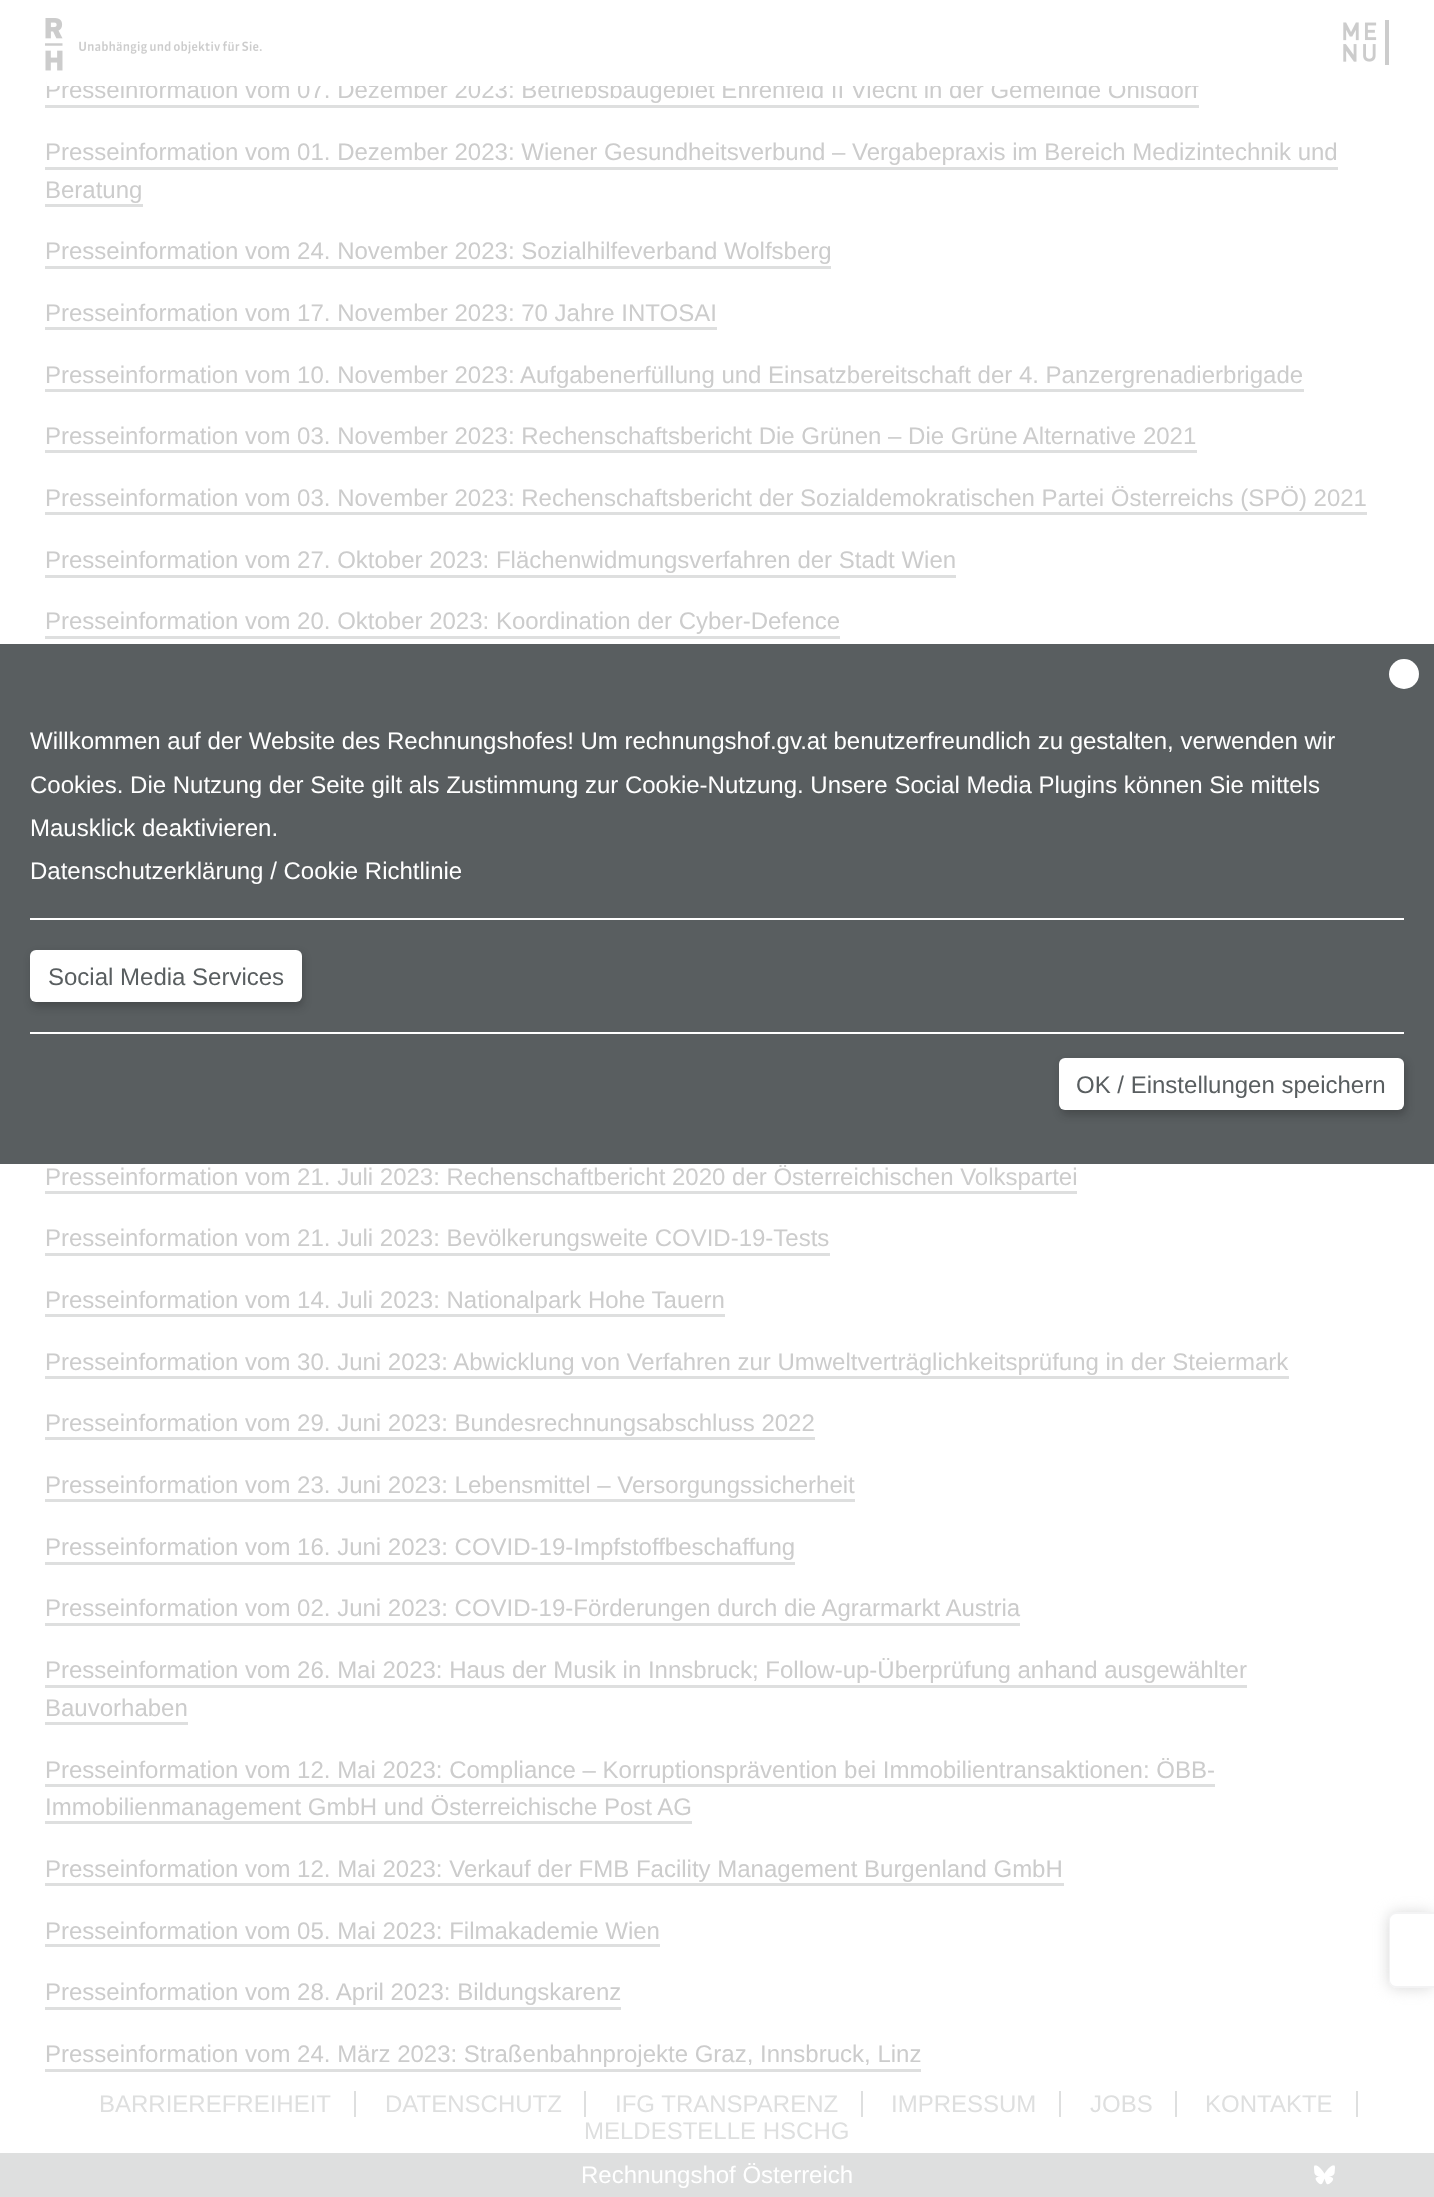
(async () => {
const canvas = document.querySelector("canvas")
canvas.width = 1434
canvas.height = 2197
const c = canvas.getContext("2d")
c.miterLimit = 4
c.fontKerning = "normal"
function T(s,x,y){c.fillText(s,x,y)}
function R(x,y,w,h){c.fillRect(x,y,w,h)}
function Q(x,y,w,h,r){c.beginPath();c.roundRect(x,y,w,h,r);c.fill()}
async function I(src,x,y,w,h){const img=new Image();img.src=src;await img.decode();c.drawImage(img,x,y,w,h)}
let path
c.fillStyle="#fff"
R(0,0,1434,2197)
c.font="24px Liberation Sans"
c.fillStyle="#ccc"
T("Presseinformation vom 07. Dezember 2023: Betriebsbaugebiet Ehrenfeld II Viecht in der Gemeinde Ohlsdorf",45,98)
c.fillStyle="#fff"
R(47,80,1152,6)
await I("1.png",45,18,217,53)
await I("2.png",1343,20,46,45)
c.fillStyle="#dedfdf"
R(45,105,1154,3)
c.fillStyle="#ccc"
T("Presseinformation vom 01. Dezember 2023: Wiener Gesundheitsverbund – Vergabepraxis im Bereich Medizintechnik und",45,160)
c.fillStyle="#dedfdf"
R(45,167,1293,3)
c.fillStyle="#ccc"
T("Beratung",45,198)
c.fillStyle="#dedfdf"
R(45,204,98,3)
c.fillStyle="#ccc"
T("Presseinformation vom 24. November 2023: Sozialhilfeverband Wolfsberg",45,259)
c.fillStyle="#dedfdf"
R(45,266,786,3)
c.fillStyle="#ccc"
T("Presseinformation vom 17. November 2023: 70 Jahre INTOSAI",45,321)
c.fillStyle="#dedfdf"
R(45,327,672,3)
c.fillStyle="#ccc"
T("Presseinformation vom 10. November 2023: Aufgabenerfüllung und Einsatzbereitschaft der 4. Panzergrenadierbrigade",45,383)
c.fillStyle="#dedfdf"
R(45,389,1259,3)
c.fillStyle="#ccc"
T("Presseinformation vom 03. November 2023: Rechenschaftsbericht Die Grünen – Die Grüne Alternative 2021",45,444)
c.fillStyle="#dedfdf"
R(45,450,1152,3)
c.fillStyle="#ccc"
T("Presseinformation vom 03. November 2023: Rechenschaftsbericht der Sozialdemokratischen Partei Österreichs (SPÖ) 2021",45,506)
c.fillStyle="#dedfdf"
R(45,512,1322,3)
c.fillStyle="#ccc"
T("Presseinformation vom 27. Oktober 2023: Flächenwidmungsverfahren der Stadt Wien",45,568)
c.fillStyle="#dedfdf"
R(45,575,911,3)
c.fillStyle="#ccc"
T("Presseinformation vom 20. Oktober 2023: Koordination der Cyber-Defence",45,629)
c.fillStyle="#dedfdf"
R(45,636,795,3)
c.fillStyle="#ccc"
T("Presseinformation vom 21. Juli 2023: Rechenschaftbericht 2020 der Österreichischen Volkspartei",45,1185)
c.fillStyle="#dedfdf"
R(45,1191,1032,3)
c.fillStyle="#ccc"
T("Presseinformation vom 21. Juli 2023: Bevölkerungsweite COVID-19-Tests",45,1246)
c.fillStyle="#dedfdf"
R(45,1253,785,3)
c.fillStyle="#ccc"
T("Presseinformation vom 14. Juli 2023: Nationalpark Hohe Tauern",45,1308)
c.fillStyle="#dedfdf"
R(45,1314,680,3)
c.fillStyle="#ccc"
T("Presseinformation vom 30. Juni 2023: Abwicklung von Verfahren zur Umweltverträglichkeitsprüfung in der Steiermark",45,1370)
c.fillStyle="#dedfdf"
R(45,1376,1244,3)
c.fillStyle="#ccc"
T("Presseinformation vom 29. Juni 2023: Bundesrechnungsabschluss 2022",45,1431)
c.fillStyle="#dedfdf"
R(45,1437,770,3)
c.fillStyle="#ccc"
T("Presseinformation vom 23. Juni 2023: Lebensmittel – Versorgungssicherheit",45,1493)
c.fillStyle="#dedfdf"
R(45,1499,810,3)
c.fillStyle="#ccc"
T("Presseinformation vom 16. Juni 2023: COVID-19-Impfstoffbeschaffung",45,1555)
c.fillStyle="#dedfdf"
R(45,1562,750,3)
c.fillStyle="#ccc"
T("Presseinformation vom 02. Juni 2023: COVID-19-Förderungen durch die Agrarmarkt Austria",45,1616)
c.fillStyle="#dedfdf"
R(45,1623,975,3)
c.fillStyle="#ccc"
T("Presseinformation vom 26. Mai 2023: Haus der Musik in Innsbruck; Follow-up-Überprüfung anhand ausgewählter",45,1678)
c.fillStyle="#dedfdf"
R(45,1685,1202,3)
c.fillStyle="#ccc"
T("Bauvorhaben",45,1716)
c.fillStyle="#dedfdf"
R(45,1722,143,3)
c.fillStyle="#ccc"
T("Presseinformation vom 12. Mai 2023: Compliance – Korruptionsprävention bei Immobilientransaktionen: ÖBB-",45,1778)
c.fillStyle="#dedfdf"
R(45,1784,1170,3)
c.fillStyle="#ccc"
T("Immobilienmanagement GmbH und Österreichische Post AG",45,1815)
c.fillStyle="#dedfdf"
R(45,1821,647,3)
c.fillStyle="#ccc"
T("Presseinformation vom 12. Mai 2023: Verkauf der FMB Facility Management Burgenland GmbH",45,1877)
c.fillStyle="#dedfdf"
R(45,1883,1019,3)
c.fillStyle="#ccc"
T("Presseinformation vom 05. Mai 2023: Filmakademie Wien",45,1939)
c.fillStyle="#dedfdf"
R(45,1944,615,3)
c.fillStyle="#ccc"
T("Presseinformation vom 28. April 2023: Bildungskarenz",45,2000)
c.fillStyle="#dedfdf"
R(45,2007,576,3)
c.fillStyle="#ccc"
T("Presseinformation vom 24. März 2023: Straßenbahnprojekte Graz, Innsbruck, Linz",45,2062)
c.fillStyle="#dedfdf"
R(45,2069,876,3)
c.fillStyle="#d6d6d6"
c.filter="blur(7.5px)"
c.beginPath()
c.roundRect(1389,1913,45,75,8)
c.fill()
c.filter="none"
c.fillStyle="#fff"
c.beginPath()
c.roundRect(1389,1913,45,75,[8,0,0,8])
c.fill()
c.fillStyle="#f3f3f4"
path = new Path2D("M1396 1912h38v76h-38c-4 0-7-4-7-8v-60c0-4 3-8 7-8zm0 2h38v72h-38c-3 0-6-3-6-6v-60c0-3 3-6 6-6z")
c.fill(path,"evenodd")
c.fillStyle="#dedfdf"
T("BARRIEREFREIHEIT",99,2112)
R(354,2091,2,26)
T("DATENSCHUTZ",385,2112)
R(584,2091,2,26)
T("IFG TRANSPARENZ",615,2112)
R(861,2091,2,26)
T("IMPRESSUM",891,2112)
R(1059,2091,2,26)
T("JOBS",1090,2112)
R(1175,2091,2,26)
T("KONTAKTE",1205,2112)
R(1356,2091,2,26)
T("MELDESTELLE HSCHG",584,2139)
R(0,2153,1434,44)
c.fillStyle="#fff"
T("Rechnungshof Österreich",581,2183)
c.font="60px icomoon"
T("󡀀",1314,2201)
c.fillStyle="#595e60"
R(0,644,1434,520)
c.fillStyle="#fff"
c.beginPath()
c.arc(1404,674,15,0,7)
c.fill()
c.font="24px Liberation Sans"
T("Willkommen auf der Website des Rechnungshofes! Um rechnungshof.gv.at benutzerfreundlich zu gestalten, verwenden wir",30,749)
T("Cookies. Die Nutzung der Seite gilt als Zustimmung zur Cookie-Nutzung. Unsere Social Media Plugins können Sie mittels",30,793)
T("Mausklick deaktivieren.",30,836)
T("Datenschutzerklärung / Cookie Richtlinie",30,879)
R(30,918,1374,2)
R(30,1032,1374,2)
c.fillStyle="#10101040"
c.filter="blur(4px)"
c.beginPath()
c.roundRect(32,954,271,53,6)
c.fill()
c.filter="none"
c.fillStyle="#fff"
Q(30,950,272,52,6)
c.fillStyle="#595e60"
T("Social Media Services",48,985)
c.fillStyle="#10101040"
c.filter="blur(4px)"
c.beginPath()
c.roundRect(1061,1062,345,53,6)
c.fill()
c.filter="none"
c.fillStyle="#fff"
Q(1059,1058,345,52,6)
c.fillStyle="#595e60"
T("OK / Einstellungen speichern",1076,1093)
})()
